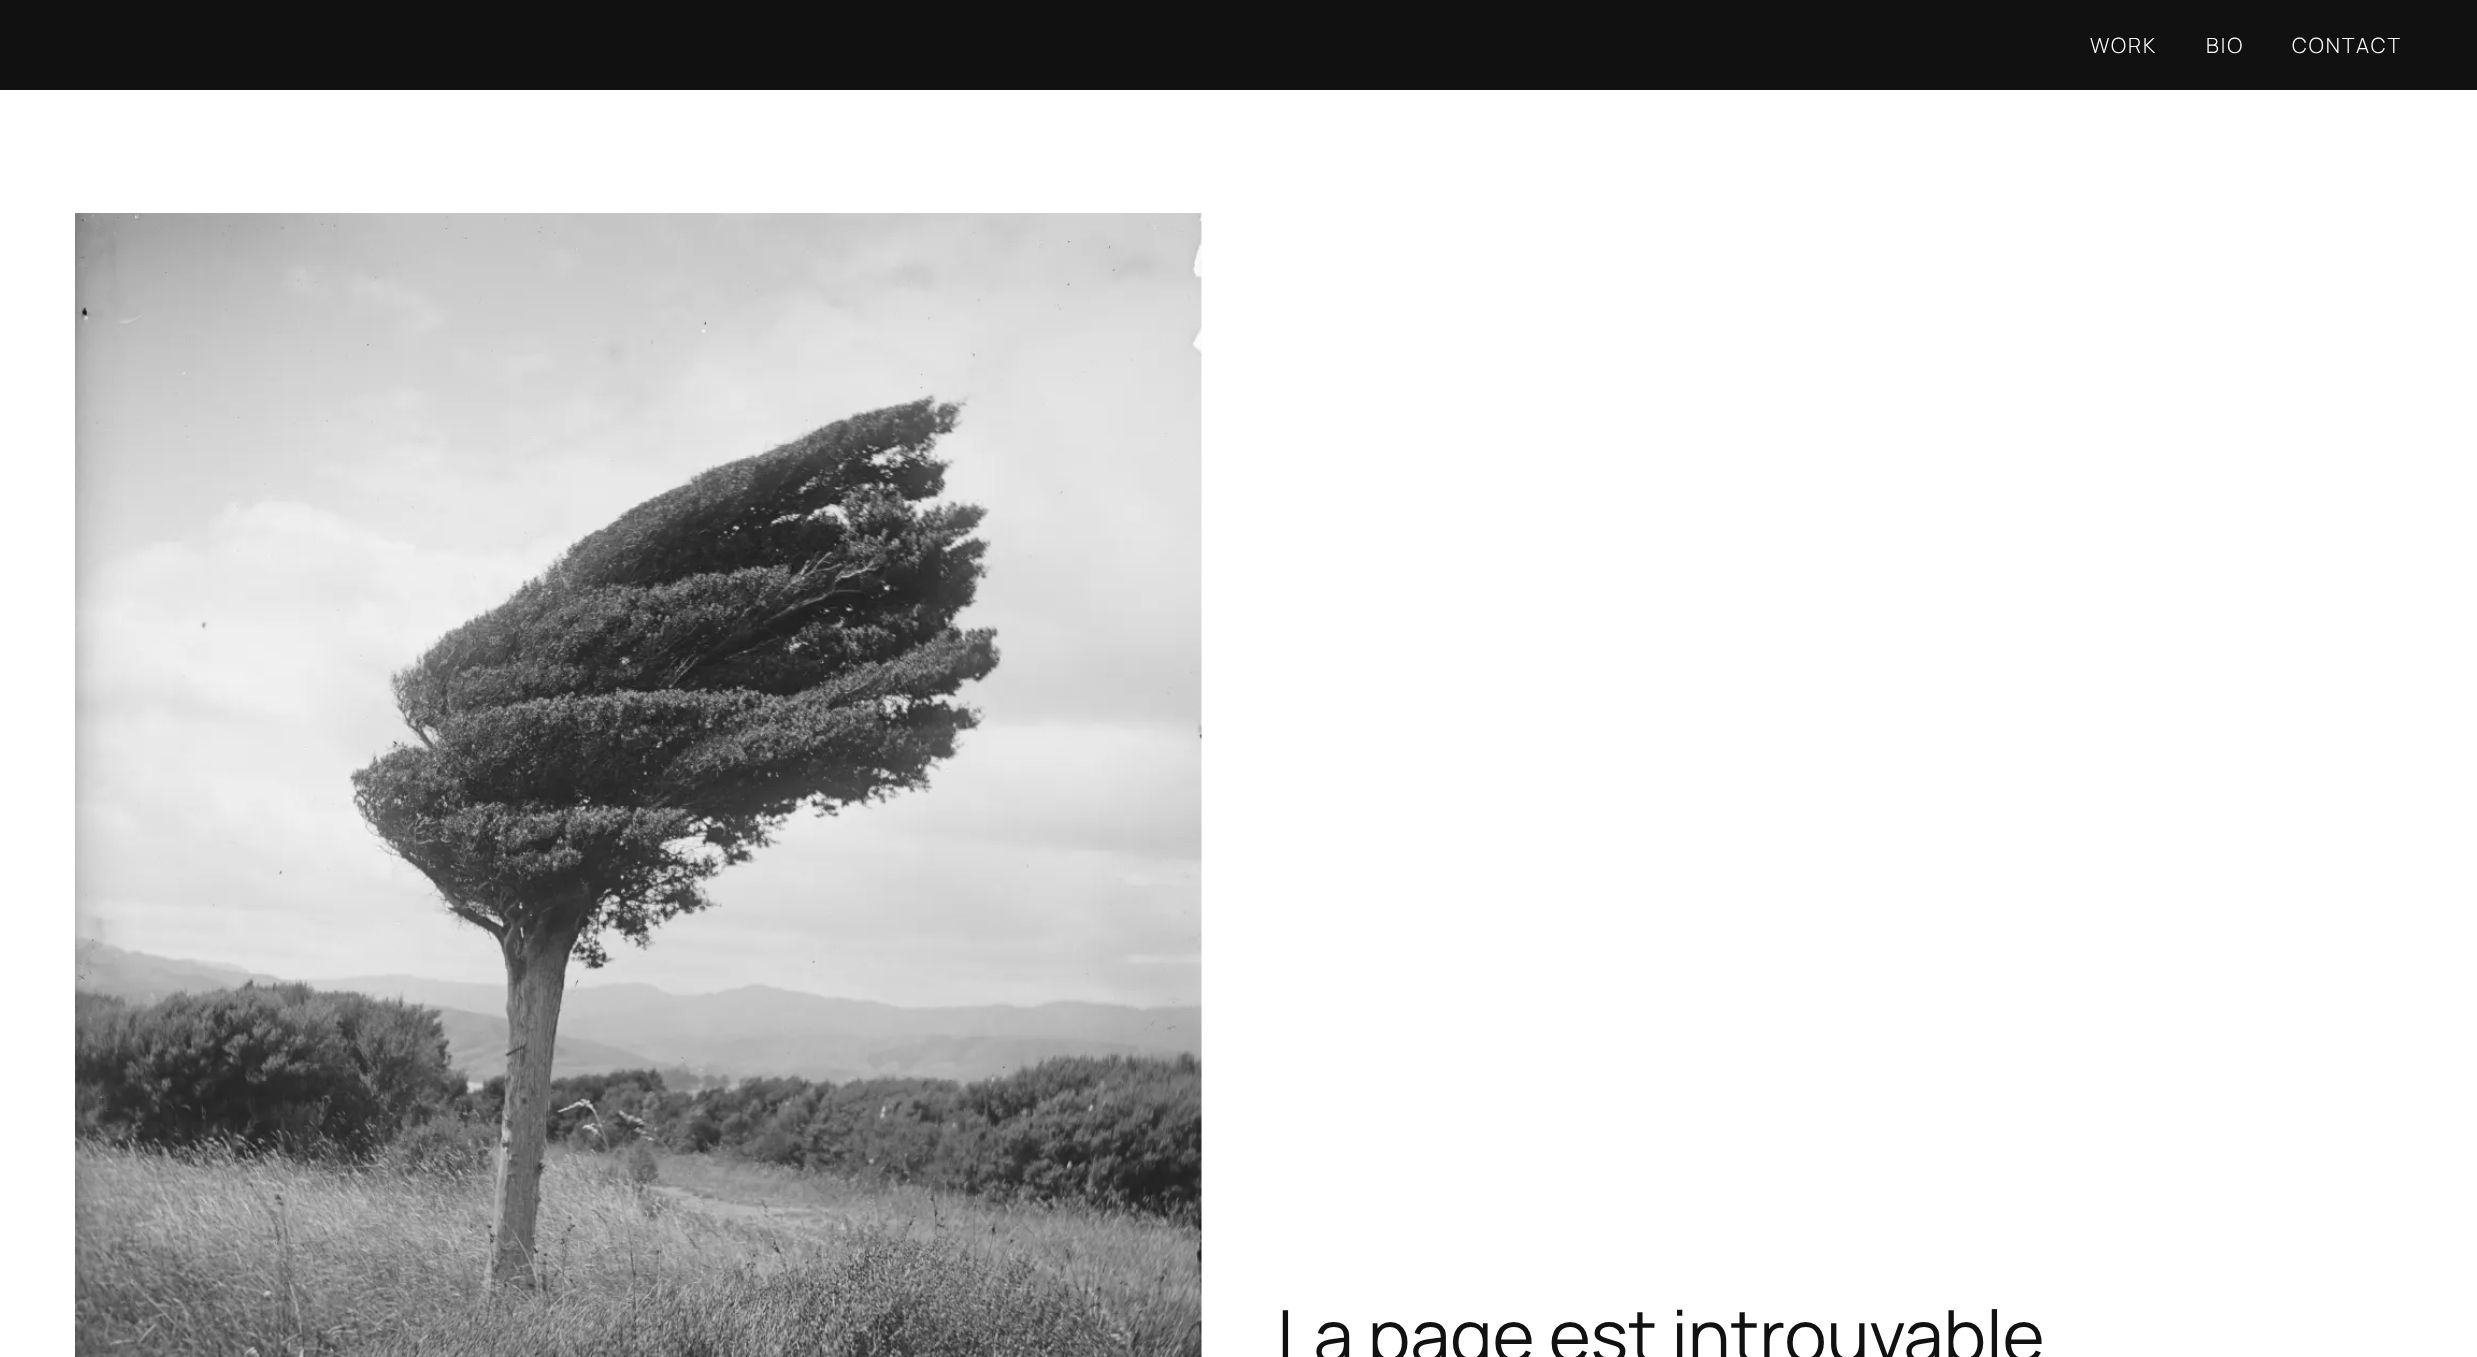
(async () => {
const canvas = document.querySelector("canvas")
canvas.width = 2477
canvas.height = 1357
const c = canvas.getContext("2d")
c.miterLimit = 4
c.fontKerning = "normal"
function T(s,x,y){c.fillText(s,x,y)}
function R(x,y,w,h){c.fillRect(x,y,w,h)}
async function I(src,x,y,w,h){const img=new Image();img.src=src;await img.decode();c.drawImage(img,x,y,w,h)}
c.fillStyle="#fff"
R(0,0,2477,1357)
c.fillStyle="#111"
R(0,0,2477,90)
c.letterSpacing="2px"
c.font="300 21px Manrope"
c.fillStyle="#fff"
T("WORK",2090,53)
T("BIO",2206,53)
T("CONTACT",2292,53)
await I("1.png",75,213,1127,1144)
c.letterSpacing="-0.15px"
c.font="72px Manrope"
c.fillStyle="#111"
T("La page est introuvable",1277,1362)
})()
